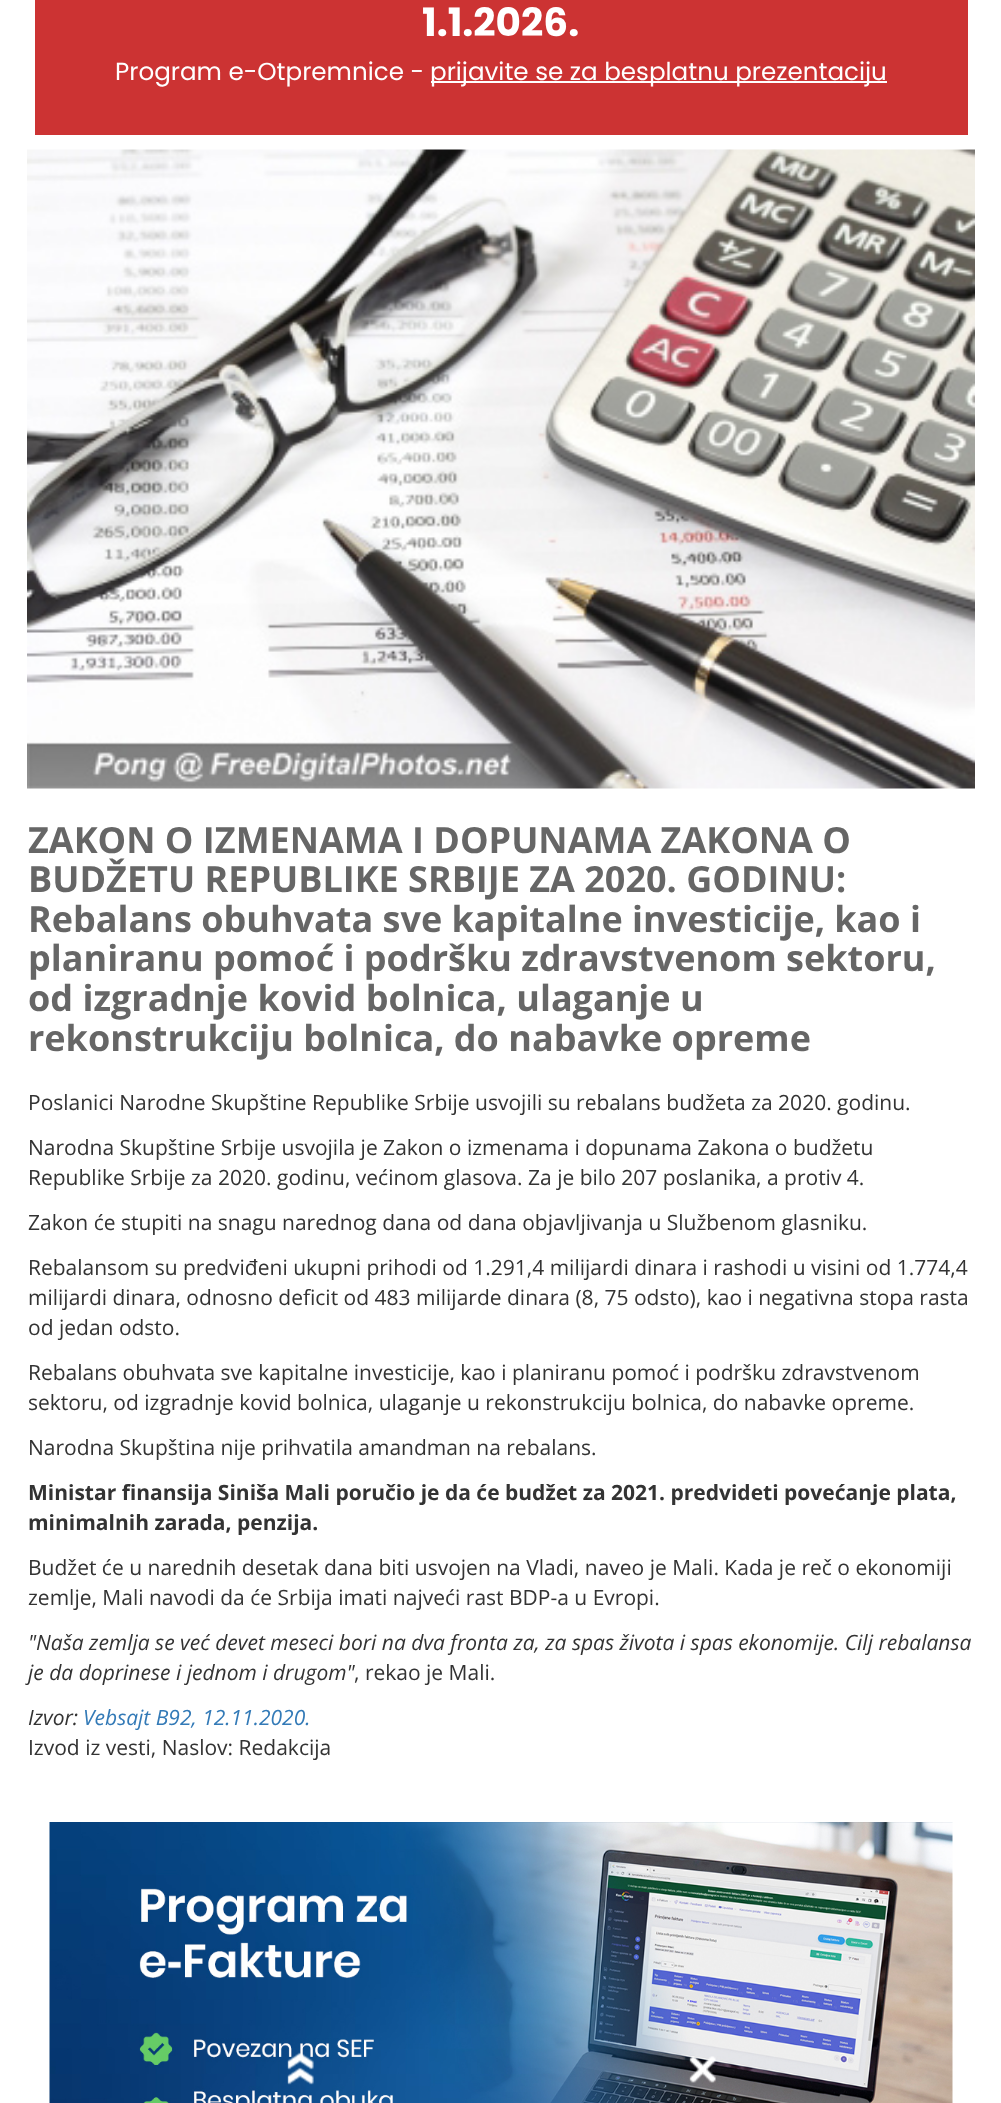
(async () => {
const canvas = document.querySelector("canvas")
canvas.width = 1001
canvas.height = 2103
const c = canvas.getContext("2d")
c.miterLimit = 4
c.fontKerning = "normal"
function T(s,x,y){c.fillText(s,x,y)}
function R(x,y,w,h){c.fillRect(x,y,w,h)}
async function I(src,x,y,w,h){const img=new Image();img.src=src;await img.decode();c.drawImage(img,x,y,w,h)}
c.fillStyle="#fff"
R(0,0,1001,2103)
c.fillStyle="#c33"
R(35,0,933,135)
c.font="bold 39px Poppins"
c.fillStyle="#fff"
T("1.1.2026.",422,36)
c.font="24.6px Poppins"
T("Program e-Otpremnice -",115,80)
R(431,81,456,2)
T("prijavite se za besplatnu prezentaciju",430,80)
await I("1.png",27,149,948,640)
c.font="bold 36px Open Sans"
c.fillStyle="#666"
T("ZAKON O IZMENAMA I DOPUNAMA ZAKONA O",28,853)
T("BUDŽETU REPUBLIKE SRBIJE ZA 2020. GODINU:",28,892)
T("Rebalans obuhvata sve kapitalne investicije, kao i",28,932)
T("planiranu pomoć i podršku zdravstvenom sektoru,",28,971)
T("od izgradnje kovid bolnica, ulaganje u",28,1011)
T("rekonstrukciju bolnica, do nabavke opreme",28,1051)
c.font="21px Open Sans"
c.fillStyle="#333"
T("Poslanici Narodne Skupštine Republike Srbije usvojili su rebalans budžeta za 2020. godinu.",28,1110)
T("Narodna Skupštine Srbije usvojila je Zakon o izmenama i dopunama Zakona o budžetu",28,1155)
T("Republike Srbije za 2020. godinu, većinom glasova. Za je bilo 207 poslanika, a protiv 4.",28,1185)
T("Zakon će stupiti na snagu narednog dana od dana objavljivanja u Službenom glasniku.",28,1230)
T("Rebalansom su predviđeni ukupni prihodi od 1.291,4 milijardi dinara i rashodi u visini od 1.774,4",28,1275)
T("milijardi dinara, odnosno deficit od 483 milijarde dinara (8, 75 odsto), kao i negativna stopa rasta",28,1305)
T("od jedan odsto.",28,1335)
T("Rebalans obuhvata sve kapitalne investicije, kao i planiranu pomoć i podršku zdravstvenom",28,1380)
T("sektoru, od izgradnje kovid bolnica, ulaganje u rekonstrukciju bolnica, do nabavke opreme.",28,1410)
T("Narodna Skupština nije prihvatila amandman na rebalans.",28,1455)
c.font="bold 21px Open Sans"
T("Ministar finansija Siniša Mali poručio je da će budžet za 2021. predvideti povećanje plata,",28,1500)
T("minimalnih zarada, penzija.",28,1530)
c.font="21px Open Sans"
T("Budžet će u narednih desetak dana biti usvojen na Vladi, naveo je Mali. Kada je reč o ekonomiji",28,1575)
T("zemlje, Mali navodi da će Srbija imati najveći rast BDP-a u Evropi.",28,1605)
c.font="italic 21px Open Sans"
T("\"Naša zemlja se već devet meseci bori na dva fronta za, za spas života i spas ekonomije. Cilj rebalansa",28,1650)
T("je da doprinese i jednom i drugom\"",28,1680)
c.font="21px Open Sans"
T(", rekao je Mali.",354,1680)
c.font="italic 21px Open Sans"
T("Izvor:",28,1725)
c.fillStyle="#337ab7"
T("Vebsajt B92, 12.11.2020.",83,1725)
c.font="21px Open Sans"
c.fillStyle="#333"
T("Izvod iz vesti, Naslov: Redakcija",28,1755)
await I("2.png",49,1822,904,281)
await I("3.png",287,2052,27,33)
await I("4.png",689,2056,27,27)
})()
